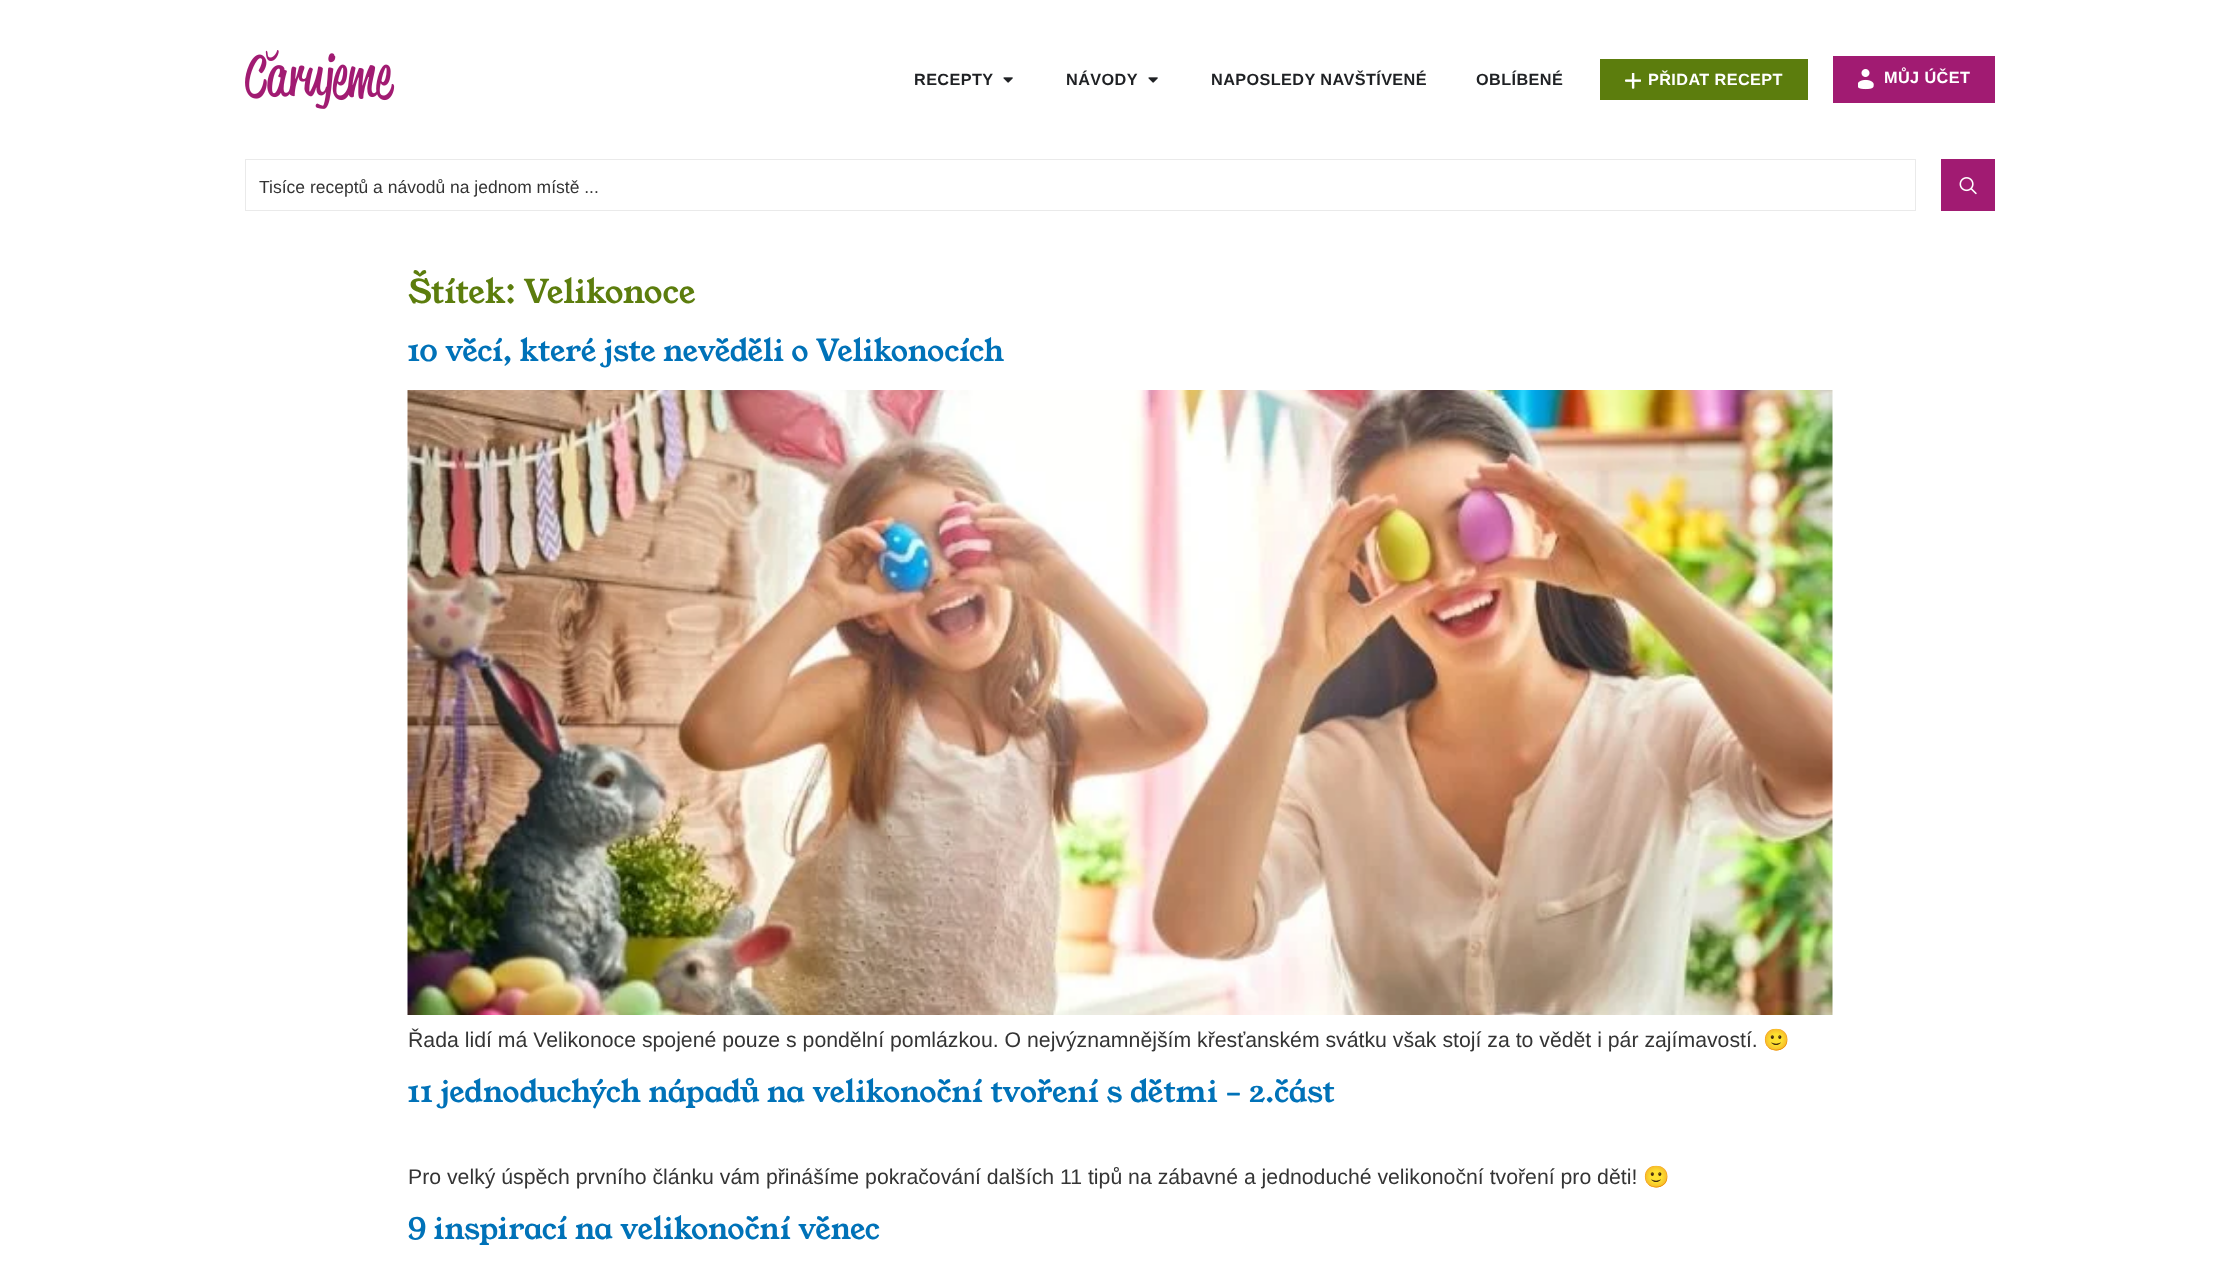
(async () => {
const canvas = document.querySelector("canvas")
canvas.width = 2239
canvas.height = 1273
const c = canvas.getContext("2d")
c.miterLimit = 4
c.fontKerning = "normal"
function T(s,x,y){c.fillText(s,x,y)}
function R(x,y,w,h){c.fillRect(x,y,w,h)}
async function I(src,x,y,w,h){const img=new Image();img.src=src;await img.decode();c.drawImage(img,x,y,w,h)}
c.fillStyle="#fff"
R(0,0,2239,1273)
await I("1.png",245,50,150,59)
c.letterSpacing="0.4px"
c.font="bold 16.25px Liberation Sans"
c.fillStyle="#1f2124"
T("RECEPTY",914,85)
await I("2.png",1003,77,10,6)
T("NÁVODY",1066,85)
await I("2.png",1148,77,10,6)
T("NAPOSLEDY NAVŠTÍVENÉ",1211,85)
T("OBLÍBENÉ",1476,85)
c.fillStyle="#5c7d0d"
R(1600,59,208,41)
await I("3.png",1625,73,16,16)
c.fillStyle="#fff"
T("PŘIDAT RECEPT",1648,85)
c.fillStyle="#a11b72"
R(1833,56,162,47)
await I("4.png",1858,69,16,21)
c.fillStyle="#fff"
T("MŮJ ÚČET",1884,83)
c.strokeStyle="#eaeaea"
c.strokeRect(245.5,159.5,1670,51)
c.letterSpacing="0px"
c.font="17.5px Liberation Sans"
c.fillStyle="#343434"
T("Tisíce receptů a návodů na jednom místě ...",259,193)
c.fillStyle="#a11b72"
R(1941,159,54,52)
await I("5.png",1959,177,18,18)
c.font="32.5px Young Serif"
c.fillStyle="#5c7d0d"
T("Štítek: Velikonoce",408,303)
c.font="30px Young Serif"
c.fillStyle="#0072b8"
T("10 věcí, které jste nevěděli o Velikonocích",408,361)
await I("6.png",407,390,1426,625)
c.font="21.25px Liberation Sans"
c.fillStyle="#343434"
T("Řada lidí má Velikonoce spojené pouze s pondělní pomlázkou. O nejvýznamnějším křesťanském svátku však stojí za to vědět i pár zajímavostí.",408,1047)
c.font="21.25px Noto Color Emoji"
T("🙂",1763,1047)
c.font="30px Young Serif"
c.fillStyle="#0072b8"
T("11 jednoduchých nápadů na velikonoční tvoření s dětmi – 2.část",408,1102)
c.font="21.25px Liberation Sans"
c.fillStyle="#343434"
T("Pro velký úspěch prvního článku vám přinášíme pokračování dalších 11 tipů na zábavné a jednoduché velikonoční tvoření pro děti!",408,1184)
c.font="21.25px Noto Color Emoji"
T("🙂",1643,1184)
c.font="30px Young Serif"
c.fillStyle="#0072b8"
T("9 inspirací na velikonoční věnec",408,1239)
})()
